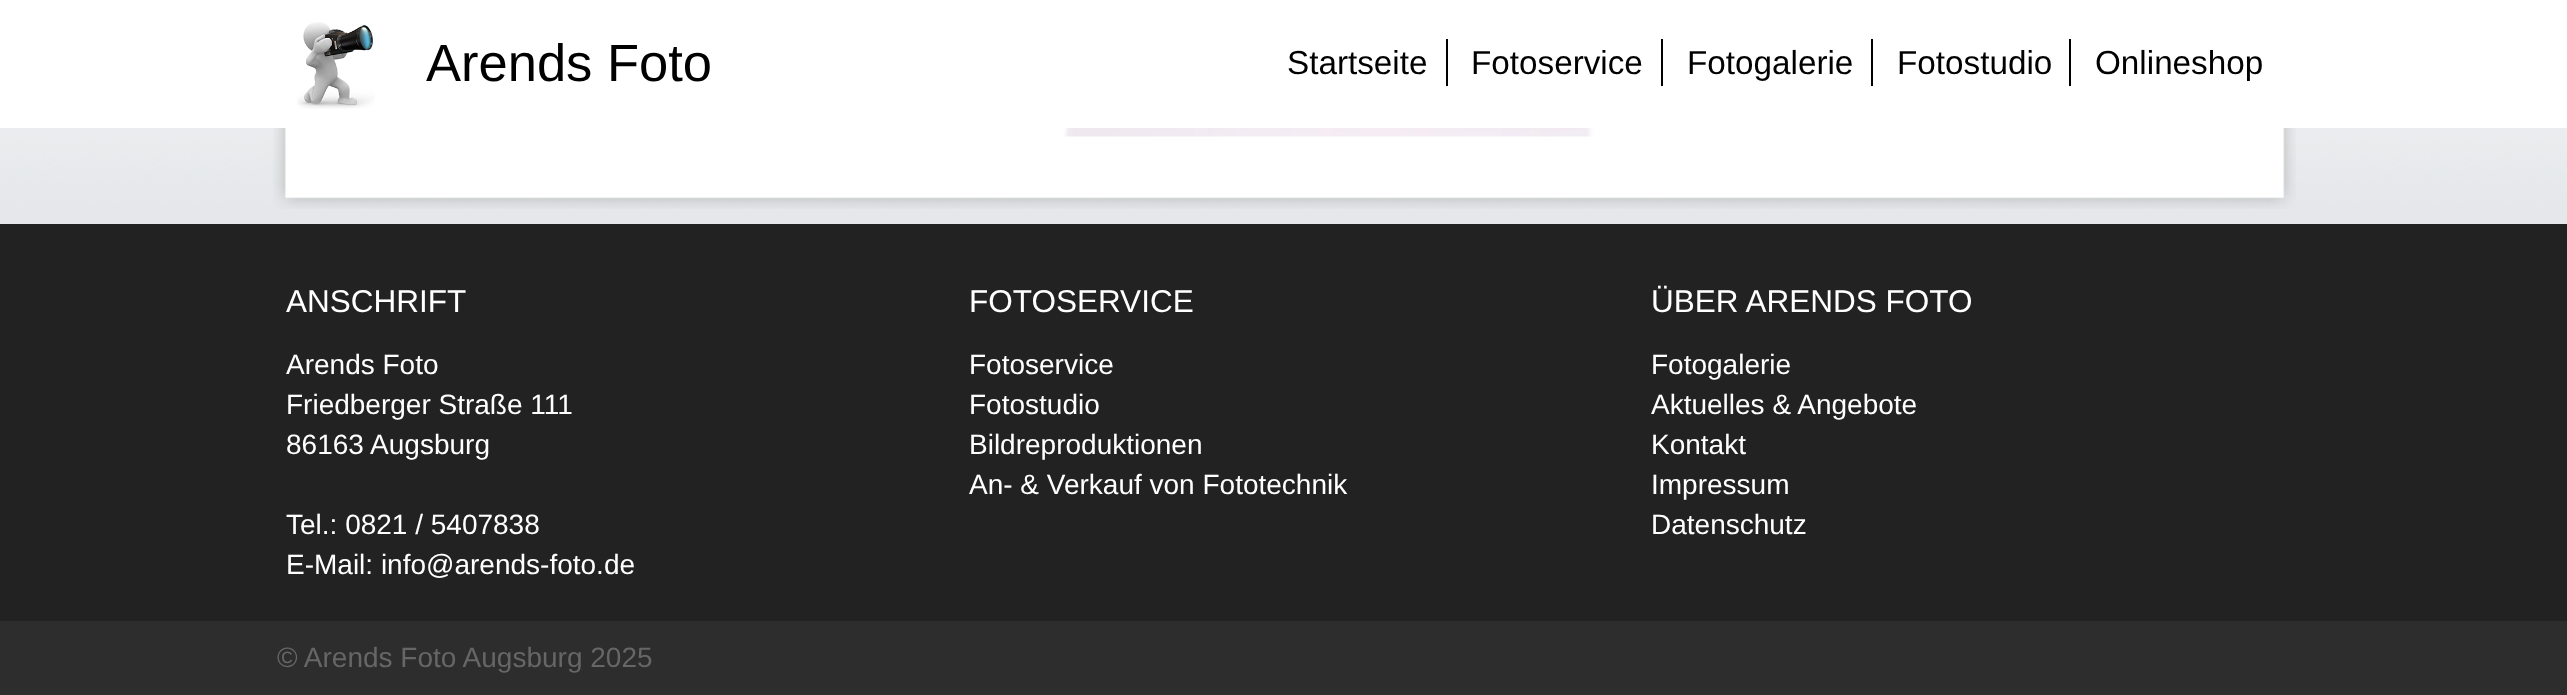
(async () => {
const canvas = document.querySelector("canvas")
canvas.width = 2567
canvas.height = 695
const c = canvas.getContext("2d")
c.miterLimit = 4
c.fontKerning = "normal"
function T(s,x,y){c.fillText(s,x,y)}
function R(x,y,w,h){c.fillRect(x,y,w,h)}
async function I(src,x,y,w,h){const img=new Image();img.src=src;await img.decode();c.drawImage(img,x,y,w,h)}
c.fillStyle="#fff"
R(0,0,2567,695)
await I("1.png",297,22,78,87)
c.font="52.5px Liberation Sans"
c.fillStyle="#000"
T("Arends Foto",426,81)
R(1446,39,2,47)
c.font="33.25px Liberation Sans"
T("Startseite",1287,74)
R(1661,39,2,47)
T("Fotoservice",1471,74)
R(1871,39,2,47)
T("Fotogalerie",1687,74)
R(2069,39,2,47)
T("Fotostudio",1897,74)
T("Onlineshop",2095,74)
await I("2.png",0,128,2567,96)
await I("3.png",273,128,2023,81)
await I("4.png",1054,128,545,9)
c.fillStyle="#222"
R(0,224,2567,397)
c.font="31.5px Liberation Sans"
c.fillStyle="#fff"
T("ANSCHRIFT",286,312)
c.font="28px Liberation Sans"
T("Arends Foto",286,374)
T("Friedberger Straße 111",286,414)
T("86163 Augsburg",286,454)
T("Tel.: 0821 / 5407838",286,534)
T("E-Mail: info@arends-foto.de",286,574)
c.font="31.5px Liberation Sans"
T("FOTOSERVICE",969,312)
c.font="28px Liberation Sans"
T("Fotoservice",969,374)
T("Fotostudio",969,414)
T("Bildreproduktionen",969,454)
T("An- & Verkauf von Fototechnik",969,494)
c.font="31.5px Liberation Sans"
T("ÜBER ARENDS FOTO",1651,312)
c.font="28px Liberation Sans"
T("Fotogalerie",1651,374)
T("Aktuelles & Angebote",1651,414)
T("Kontakt",1651,454)
T("Impressum",1651,494)
T("Datenschutz",1651,534)
c.fillStyle="#2d2d2d"
R(0,621,2567,74)
c.fillStyle="#666"
T("© Arends Foto Augsburg 2025",277,667)
})()
